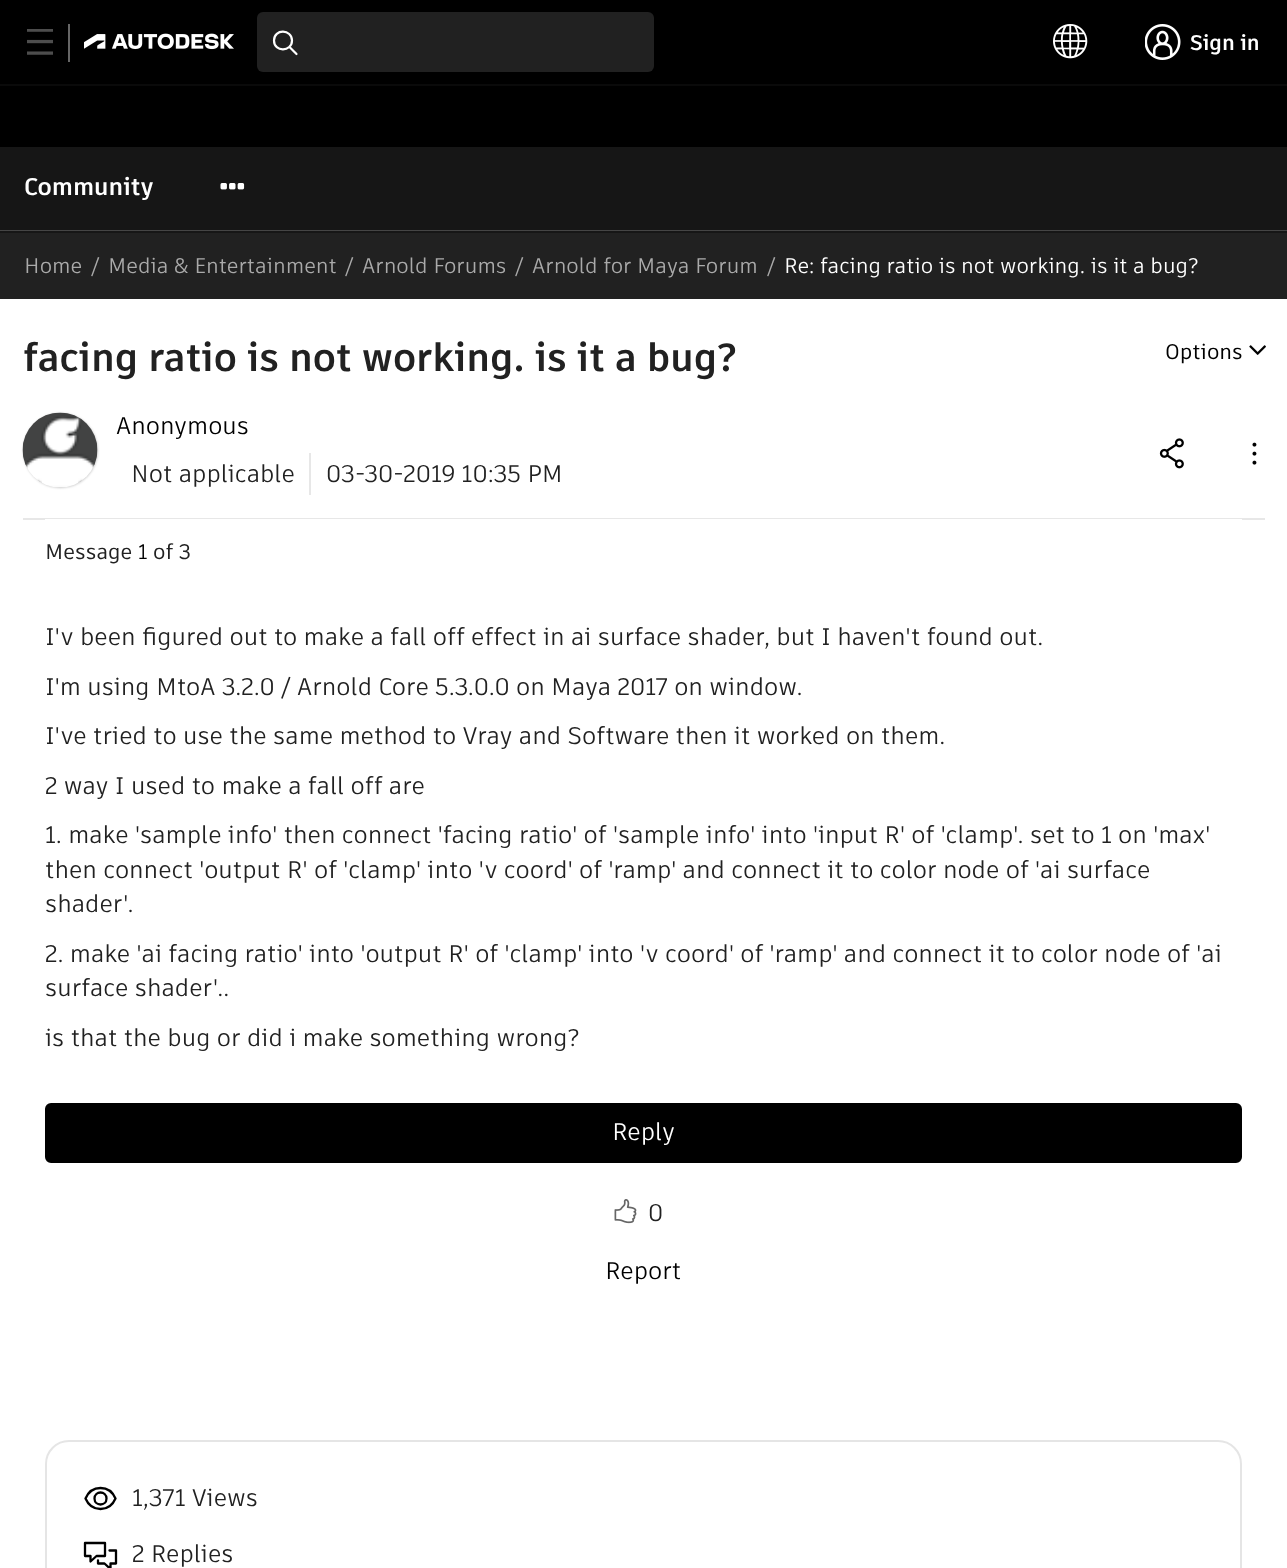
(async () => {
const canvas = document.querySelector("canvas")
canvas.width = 1287
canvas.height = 1568
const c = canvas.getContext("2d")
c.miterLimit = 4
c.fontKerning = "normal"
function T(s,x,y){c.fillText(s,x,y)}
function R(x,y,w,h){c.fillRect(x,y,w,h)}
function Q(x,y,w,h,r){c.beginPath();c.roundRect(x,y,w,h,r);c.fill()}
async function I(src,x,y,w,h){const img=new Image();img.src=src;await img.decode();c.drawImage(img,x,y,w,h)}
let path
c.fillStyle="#fff"
R(0,0,1287,1568)
c.fillStyle="#000"
R(0,0,1287,147)
c.fillStyle="#0a0a0a"
R(0,84,1287,2)
await I("1.png",27,29,26,26)
c.fillStyle="#666"
R(68,24,2,38)
await I("2.png",84,33,150,17)
c.fillStyle="#212121"
Q(257,12,397,60,6)
path = new Path2D("M289.5 47l7 7m-4.5-13.5c0 11.5-18 12-18 0c0-12 18-11.5 18 0z")
c.strokeStyle="#fff"
c.lineWidth=2.2
c.lineCap="round"
c.stroke(path)
await I("3.png",1053,24,35,35)
await I("4.png",1145,24,36,36)
c.font="bold 21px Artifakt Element"
c.fillStyle="#fff"
T("Sign in",1190,50)
c.fillStyle="#161616"
R(0,147,1287,86)
c.font="bold 24px Artifakt Element"
c.fillStyle="#fff"
T("Community",24,195)
await I("5.png",220,183,25,7)
c.fillStyle="#454545"
R(0,230,1287,1)
c.fillStyle="#212121"
R(0,233,1287,66)
c.font="21px Artifakt Element"
c.fillStyle="#aaa"
T("Home",24,273)
T("/",91,273)
T("Media & Entertainment",108,273)
T("/",345,273)
T("Arnold Forums",362,273)
T("/",515,273)
T("Arnold for Maya Forum",532,273)
T("/",767,273)
c.fillStyle="#fff"
T("Re: facing ratio is not working. is it a bug?",784,273)
c.fillStyle="#e7e7e7"
R(23,518,1242,2)
c.font="bold 39px Artifakt Element"
c.fillStyle="#212121"
T("facing ratio is not working. is it a bug?",23,371)
c.font="500 21px Artifakt Element"
c.fillStyle="#000"
T("Options",1165,359)
await I("6.png",1249,345,17,10)
c.fillStyle="#ccc"
c.filter="blur(1px)"
c.beginPath()
c.roundRect(23,413,75,75,37.5)
c.fill()
c.filter="none"
await I("7.png",22,412,76,75)
c.font="24px Artifakt Element"
c.fillStyle="#000"
T("Anonymous",116,434)
c.fillStyle="#e7e7e7"
R(309,453,2,42)
c.fillStyle="#212121"
T("Not applicable",131,482)
T("03-30-2019 10:35 PM",326,482)
await I("8.png",1159,438,25,31)
await I("9.png",1252,442,5,23)
c.fillStyle="#fff"
R(45,519,1197,1)
c.font="500 21px Artifakt Element"
c.fillStyle="#212121"
T("Message",45,559)
c.font="21px Artifakt Element"
c.fillStyle="#000"
T("1",138,559)
c.font="500 21px Artifakt Element"
c.fillStyle="#212121"
T("of 3",153,559)
c.font="24px Artifakt Element"
T("I'v been figured out to make a fall off effect in ai surface shader, but I haven't found out.",45,645)
T("I'm using MtoA 3.2.0 / Arnold Core 5.3.0.0 on Maya 2017 on window.",45,695)
T("I've tried to use the same method to Vray and Software then it worked on them.",45,744)
T("2 way I used to make a fall off are",45,794)
T("1. make 'sample info' then connect 'facing ratio' of 'sample info' into 'input R' of 'clamp'. set to 1 on 'max'",45,843)
T("then connect 'output R' of 'clamp' into 'v coord' of 'ramp' and connect it to color node of 'ai surface",45,878)
T("shader'.",45,912)
T("2. make 'ai facing ratio' into 'output R' of 'clamp' into 'v coord' of 'ramp' and connect it to color node of 'ai",45,962)
T("surface shader'..",45,996)
T("is that the bug or did i make something wrong?",45,1046)
c.fillStyle="#000"
c.beginPath()
c.roundRect(46,1104,1195,58,5)
c.fill()
c.strokeStyle="#000"
c.lineWidth=2
c.stroke()
c.fillStyle="#fff"
T("Reply",612,1140)
await I("10.png",614,1199,23,25)
c.fillStyle="#212121"
T("0",648,1221)
c.fillStyle="#000"
T("Report",605,1279)
c.beginPath()
c.roundRect(46,1441,1195,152,23)
c.strokeStyle="#e5e5e5"
c.stroke()
path = new Path2D("M106.5 1498.5c0 8-12 8-12 0c0-8 12-8 12 0zm9 0c-6 14-24 14-30 0c6-14 24-14 30 0z")
c.strokeStyle="#000"
c.lineWidth=2.3
c.lineCap="butt"
c.lineJoin="round"
c.stroke(path)
c.fillStyle="#212121"
T("1,371 Views",132,1506)
path = new Path2D("M109.5 1550.5h6.5v13h-5.5v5.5l-6-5.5h-6.5v-3m-13-17.5v13h5.5v5.5l6-5.5h8.5v-13z")
c.lineCap="round"
c.stroke(path)
T("2 Replies",132,1562)
})()
